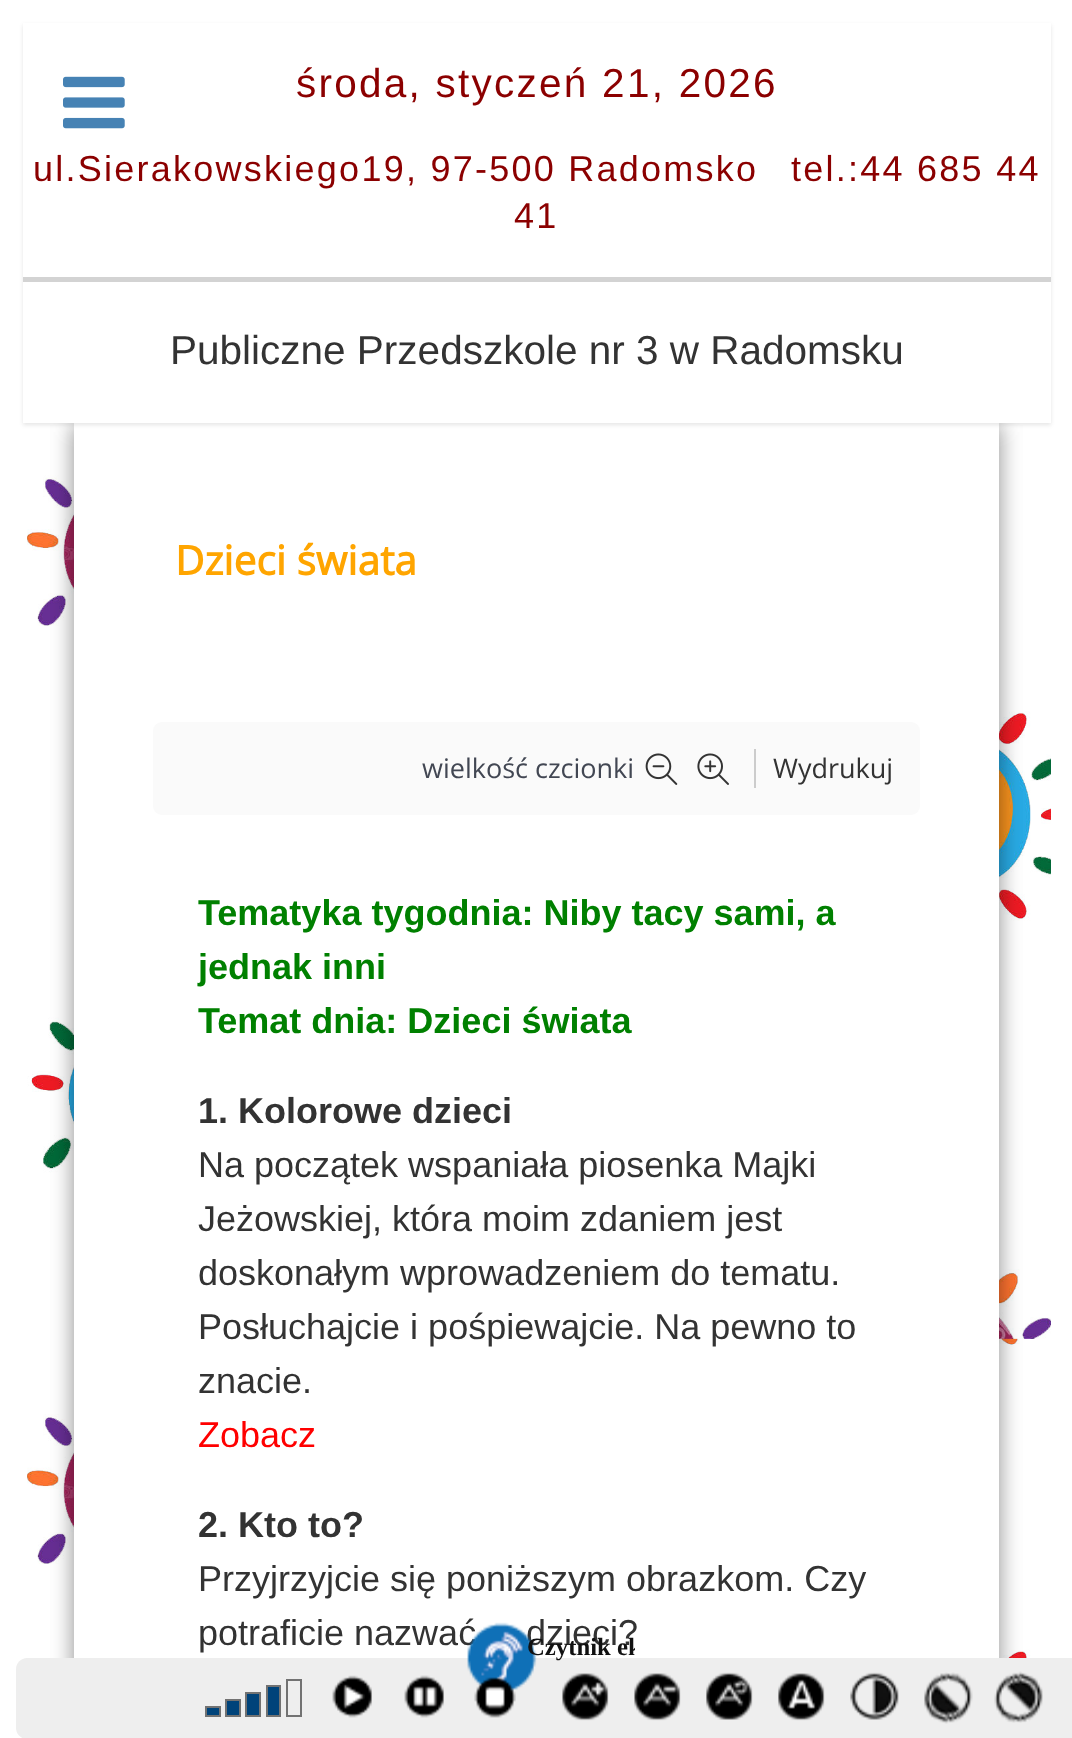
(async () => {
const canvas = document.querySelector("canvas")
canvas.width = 1072
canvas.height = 1738
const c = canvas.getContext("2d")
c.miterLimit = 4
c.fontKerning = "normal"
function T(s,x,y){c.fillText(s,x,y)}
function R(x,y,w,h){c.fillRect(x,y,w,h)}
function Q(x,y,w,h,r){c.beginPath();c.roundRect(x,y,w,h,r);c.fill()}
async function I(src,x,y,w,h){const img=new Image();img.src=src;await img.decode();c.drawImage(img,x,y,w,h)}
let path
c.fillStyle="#fff"
R(0,0,1072,1738)
await I("1.png",27,423,1024,1235)
c.fillStyle="#00000038"
c.filter="blur(11px)"
c.beginPath()
c.rect(74,425,925,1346)
c.fill()
c.filter="none"
c.fillStyle="#00000040"
c.filter="blur(11px)"
c.beginPath()
c.rect(74,425,925,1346)
c.fill()
c.filter="none"
c.fillStyle="#fff"
R(74,423,925,1235)
c.fillStyle="#0000001a"
c.filter="blur(2px)"
c.beginPath()
c.rect(23,25,1028,400)
c.fill()
c.filter="none"
c.fillStyle="#fff"
R(23,23,1028,400)
c.letterSpacing="2.25px"
c.font="40.5px Liberation Sans"
c.fillStyle="#8b0000"
T("środa, styczeń 21, 2026",296,97)
c.font="36px Liberation Sans"
T("ul.Sierakowskiego19, 97-500 Radomsko",33,181)
T("tel.:44 685 44",791,181)
T("41",514,228)
c.fillStyle="#d3d3d3"
R(23,277,1028,5)
c.letterSpacing="0px"
c.font="40.5px Liberation Sans"
c.fillStyle="#333"
T("Publiczne Przedszkole nr 3 w Radomsku",170,364)
await I("2.png",63,76,62,53)
c.font="bold 40.5px Open Sans"
c.fillStyle="#ffa500"
T("Dzieci świata",175,575)
c.fillStyle="#fafafa"
Q(153,722,767,93,9)
c.font="27px Open Sans"
c.fillStyle="#424753"
T("wielkość czcionki",422,778)
await I("3.png",645,753,33,32)
await I("4.png",697,753,32,32)
c.fillStyle="#333"
T("Wydrukuj",773,778)
c.fillStyle="#ccc"
R(754,749,2,39)
c.font="bold 36px Liberation Sans"
c.fillStyle="#008000"
T("Tematyka tygodnia: Niby tacy sami, a",198,925)
T("jednak inni",198,979)
T("Temat dnia: Dzieci świata",198,1033)
c.fillStyle="#333"
T("1. Kolorowe dzieci",198,1123)
c.font="36px Liberation Sans"
T("Na początek wspaniała piosenka Majki",198,1177)
T("Jeżowskiej, która moim zdaniem jest",198,1231)
T("doskonałym wprowadzeniem do tematu.",198,1285)
T("Posłuchajcie i pośpiewajcie. Na pewno to",198,1339)
T("znacie.",198,1393)
c.fillStyle="#f00"
T("Zobacz",198,1447)
c.font="bold 36px Liberation Sans"
c.fillStyle="#333"
T("2. Kto to?",198,1537)
c.font="36px Liberation Sans"
T("Przyjrzyjcie się poniższym obrazkom. Czy",198,1591)
T("potraficie nazwać",198,1645)
T("dzieci?",526,1645)
c.fillStyle="#eee"
path = new Path2D("M27 1658h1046v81h-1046c-6 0-11-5-11-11v-59c0-6 5-11 11-11z")
c.fill(path)
await I("5.png",467,1622,70,70)
c.save()
c.beginPath()
c.rect(455,1620,180,79)
c.clip()
c.font="bold 24.75px Liberation Serif"
c.fillStyle="#111"
T("Czytnik ek",527,1655)
c.restore()
c.fillStyle="#00437a"
c.beginPath()
c.rect(206,1707,14,9)
c.fill()
c.strokeStyle="#727272"
c.lineWidth=2
c.stroke()
c.beginPath()
c.rect(226,1700,14,16)
c.fill()
c.stroke()
c.beginPath()
c.rect(246,1693,14,23)
c.fill()
c.stroke()
c.beginPath()
c.rect(267,1686,13,30)
c.fill()
c.stroke()
c.strokeRect(287,1680,14,36)
await I("6.png",332,1675,40,43)
await I("7.png",404,1675,40,43)
await I("8.png",474,1677,42,41)
await I("9.png",562,1673,47,48)
await I("10.png",634,1673,47,48)
await I("11.png",706,1672,47,48)
await I("12.png",778,1673,47,48)
await I("13.png",850,1672,49,48)
await I("14.png",924,1672,49,52)
await I("15.png",994,1671,49,52)
})()
